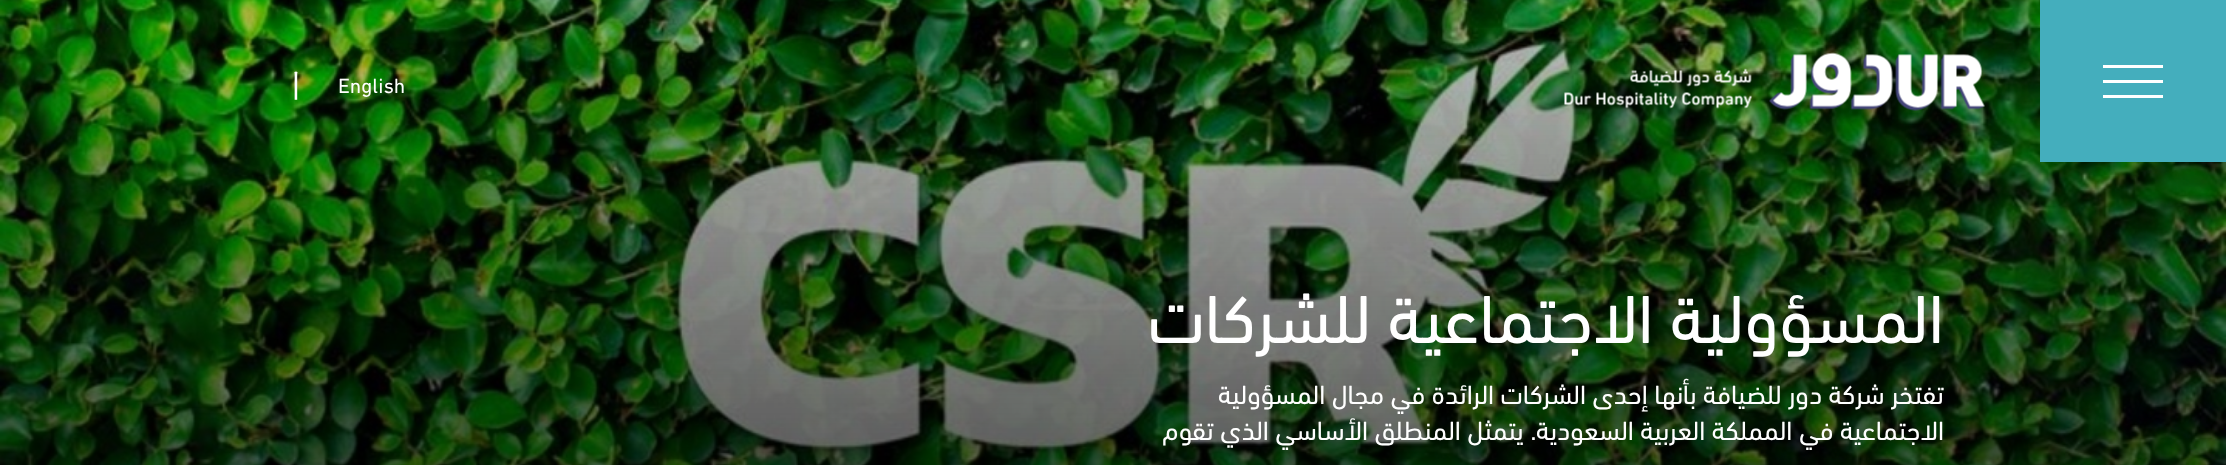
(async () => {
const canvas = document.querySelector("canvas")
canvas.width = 2226
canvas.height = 465
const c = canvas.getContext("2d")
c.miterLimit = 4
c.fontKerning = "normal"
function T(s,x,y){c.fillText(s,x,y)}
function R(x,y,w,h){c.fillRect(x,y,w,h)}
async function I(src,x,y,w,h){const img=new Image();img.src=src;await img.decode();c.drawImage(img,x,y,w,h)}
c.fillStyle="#fff"
R(0,0,2226,465)
await I("2.png",0,0,2226,465)
c.fillStyle="#44aebd"
R(2040,0,186,162)
c.fillStyle="#fff"
R(2103,65,60,3)
R(2103,80,60,3)
R(2103,95,60,3)
await I("1.png",1564,52,421,59)
c.font="21px DIN Next"
T("English",338,93)
c.font="34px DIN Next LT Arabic"
T("|",291,97)
c.direction="rtl"
c.font="69px DIN Next LT Arabic"
T("المسؤولية الاجتماعية للشركات",1944,343)
c.font="27px DIN Next LT Arabic"
T("تفتخر شركة دور للضيافة بأنها إحدى الشركات الرائدة في مجال المسؤولية",1944,404)
T("الاجتماعية في المملكة العربية السعودية. يتمثل المنطلق الأساسي الذي تقوم",1944,440)
})()
